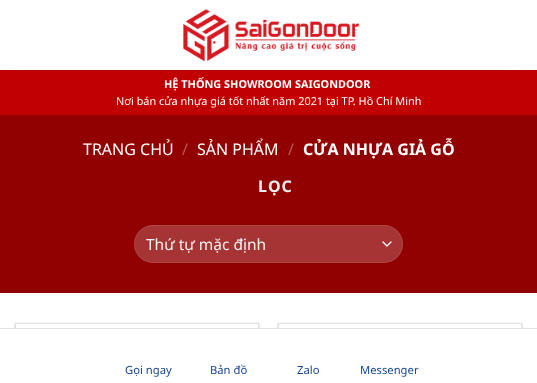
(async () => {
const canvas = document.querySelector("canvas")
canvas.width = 537
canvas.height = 383
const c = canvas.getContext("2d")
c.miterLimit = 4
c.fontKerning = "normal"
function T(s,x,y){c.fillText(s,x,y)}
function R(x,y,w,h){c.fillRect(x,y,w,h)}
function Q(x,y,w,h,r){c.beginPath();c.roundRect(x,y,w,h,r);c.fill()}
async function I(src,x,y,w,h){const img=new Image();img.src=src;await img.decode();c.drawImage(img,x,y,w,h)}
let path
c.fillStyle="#fff"
R(0,0,537,383)
await I("1.png",182,9,178,53)
c.fillStyle="#c10101"
R(0,70,537,45)
c.fillStyle="#b40707"
R(15,70,507,1)
c.font="bold 10.9px Noto Sans"
c.fillStyle="#fff"
T("HỆ THỐNG SHOWROOM SAIGONDOOR",164,88)
c.font="10.9px Noto Sans"
T("Nơi bán cửa nhựa giá tốt nhất năm 2021 tại TP. Hồ Chí Minh",116,105)
c.fillStyle="#910101"
R(0,115,537,178)
c.font="16px Noto Sans"
c.fillStyle="#fff"
T("TRANG CHỦ",83,155)
c.fillStyle="#b85a5a"
T("/",182,155)
c.fillStyle="#fff"
T("SẢN PHẨM",197,155)
c.fillStyle="#b85a5a"
T("/",288,155)
c.font="bold 16px Noto Sans"
c.fillStyle="#fff"
T("CỬA NHỰA GIẢ GỖ",303,155)
c.letterSpacing="1px"
c.fillStyle="#f1f1f1"
T("LỌC",258,192)
c.fillStyle="#a73434"
Q(134,225,269,38,19)
path = new Path2D("M383 242l4 4l4-4")
c.strokeStyle="#fff"
c.lineWidth=1.3
c.lineCap="round"
c.lineJoin="round"
c.stroke(path)
c.beginPath()
c.roundRect(134.5,225.5,268,37,18.5)
c.strokeStyle="#ffffff17"
c.lineWidth=1
c.lineJoin="miter"
c.stroke()
c.letterSpacing="0px"
c.font="15.5px Noto Sans"
c.fillStyle="#f1f1f1"
T("Thứ tự mặc định",146,250)
c.save()
path = new Path2D("M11 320h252v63h-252zm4 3h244v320h-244z")
c.clip(path,"evenodd")
c.fillStyle="#0000003d"
c.filter="blur(1px)"
c.beginPath()
c.rect(15,324,244,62)
c.fill()
c.filter="none"
c.restore()
c.strokeStyle="#dfdfdf"
c.strokeRect(15.5,323.5,243,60)
c.save()
path = new Path2D("M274 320h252v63h-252zm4 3h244v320h-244z")
c.clip(path,"evenodd")
c.fillStyle="#0000003d"
c.filter="blur(1px)"
c.beginPath()
c.rect(278,324,244,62)
c.fill()
c.filter="none"
c.restore()
c.strokeRect(278.5,323.5,243,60)
c.fillStyle="#fff"
R(13,329,511,54)
c.fillStyle="#e2e2e2"
R(0,328,537,1)
c.font="11.25px Noto Sans"
c.fillStyle="#164892"
T("Gọi ngay",125,374)
T("Bản đồ",210,374)
T("Zalo",297,374)
T("Messenger",360,374)
})()
